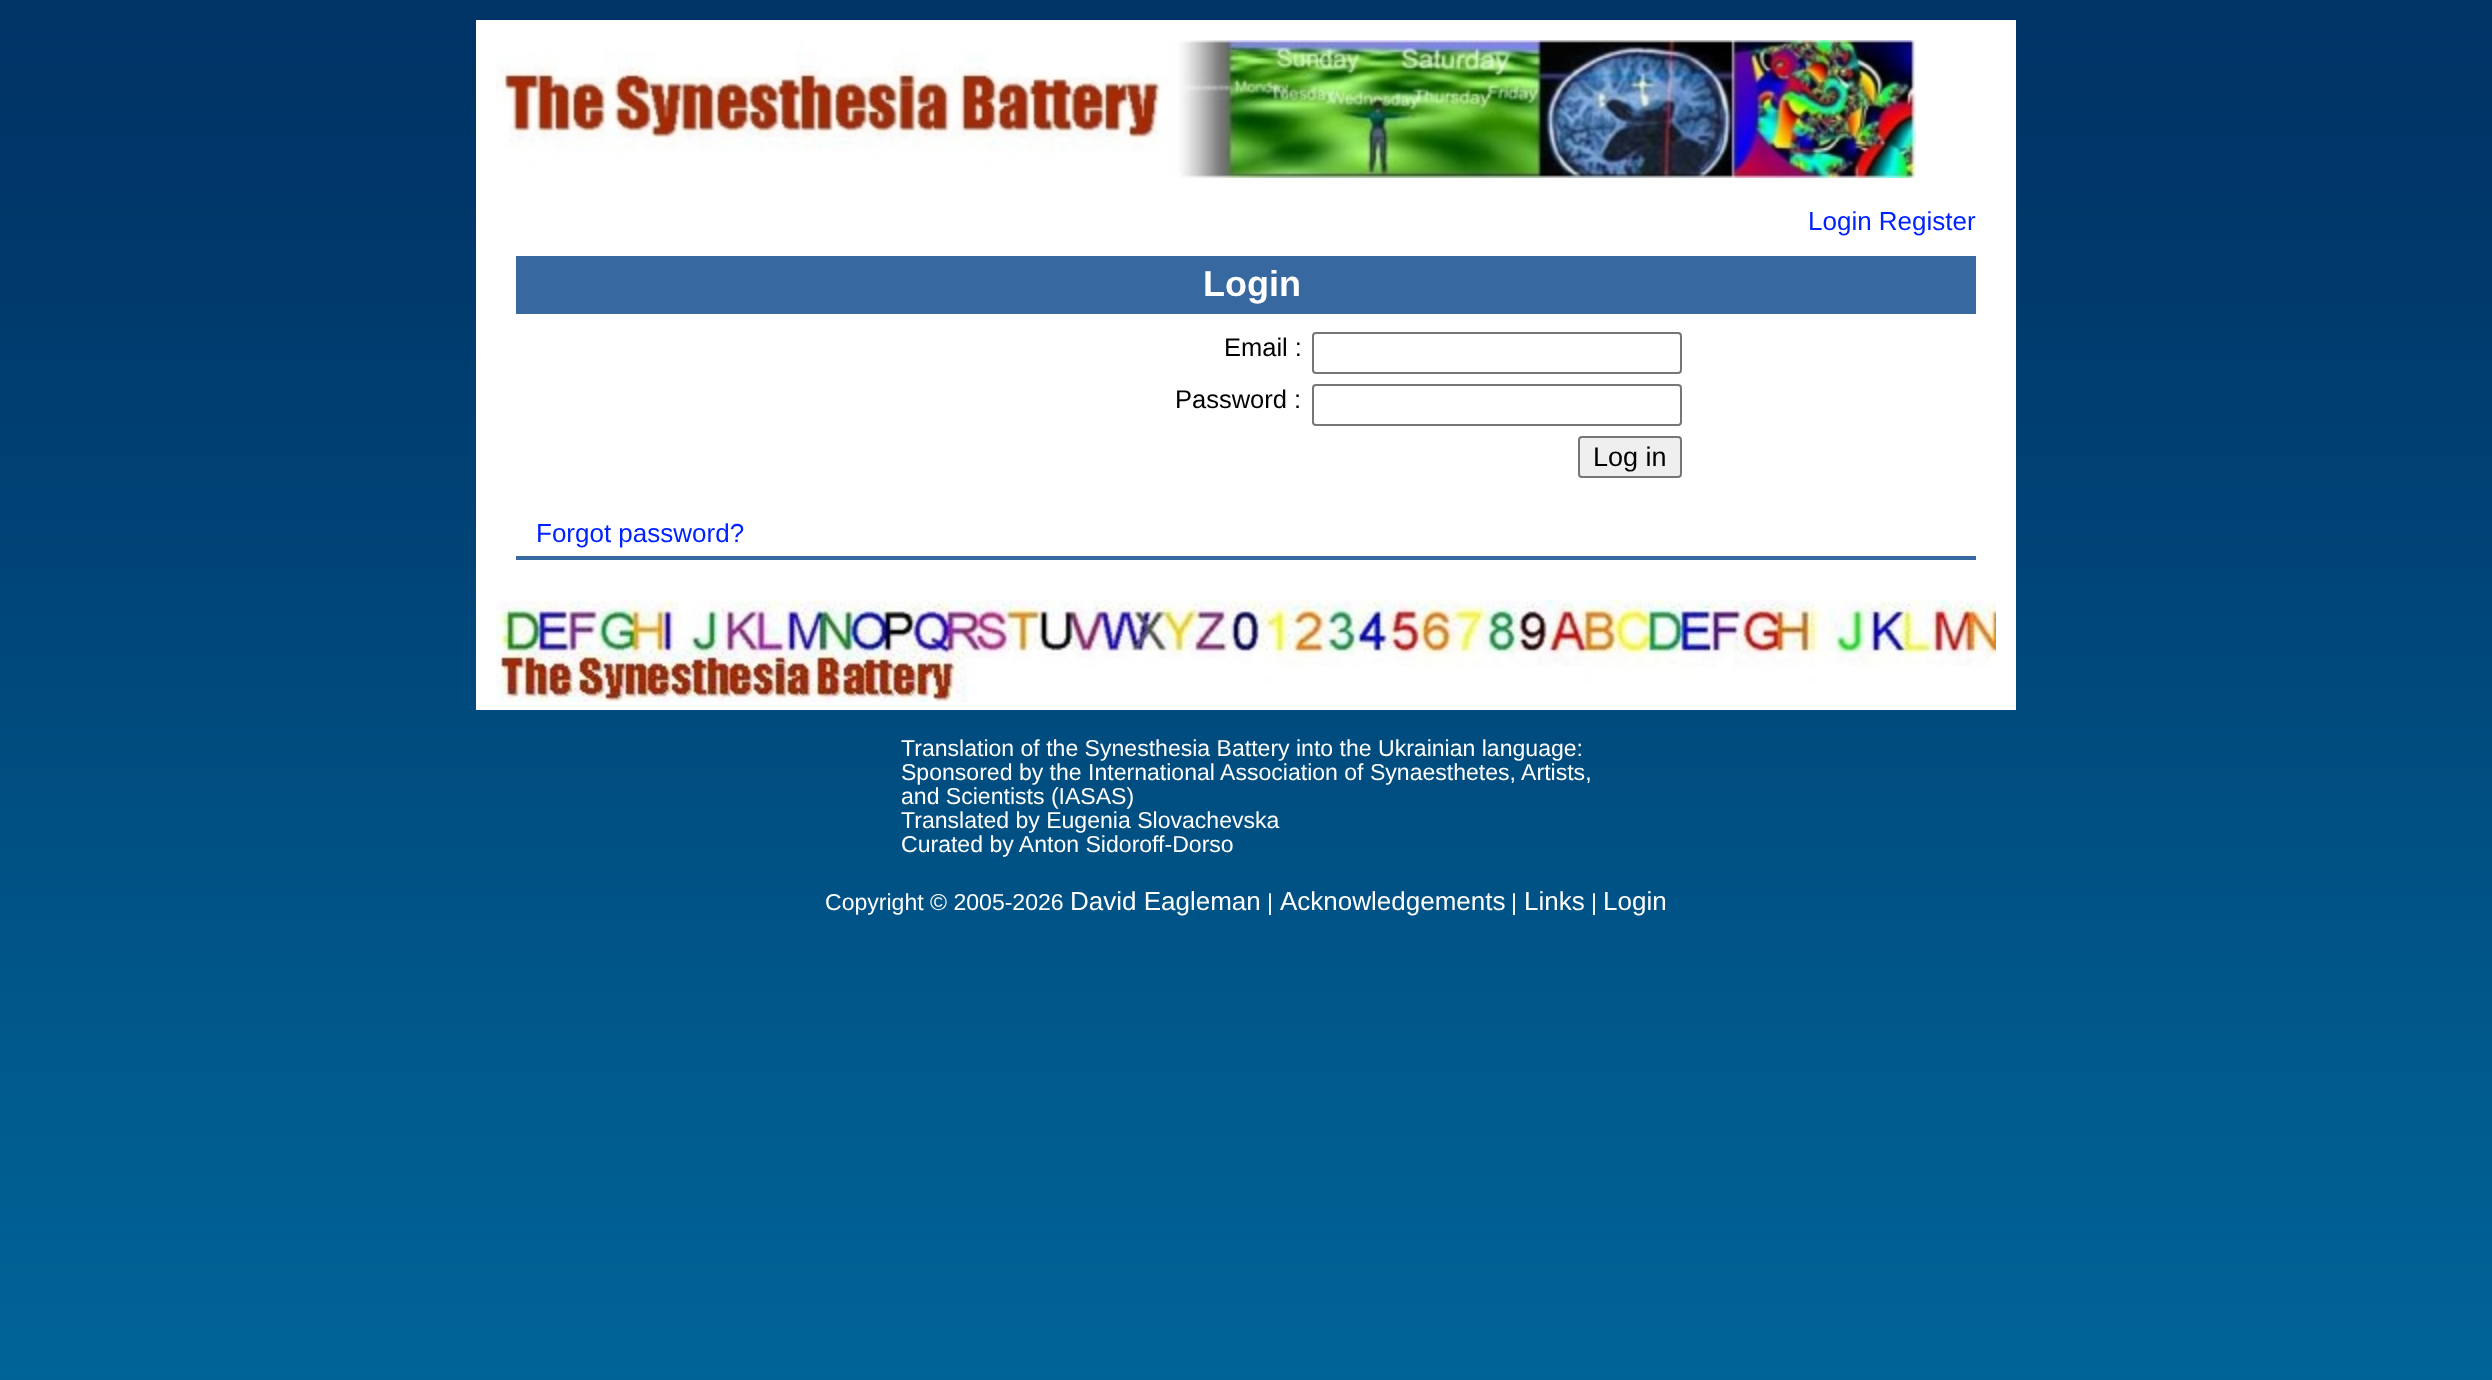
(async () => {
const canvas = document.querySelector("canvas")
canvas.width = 2492
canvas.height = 1380
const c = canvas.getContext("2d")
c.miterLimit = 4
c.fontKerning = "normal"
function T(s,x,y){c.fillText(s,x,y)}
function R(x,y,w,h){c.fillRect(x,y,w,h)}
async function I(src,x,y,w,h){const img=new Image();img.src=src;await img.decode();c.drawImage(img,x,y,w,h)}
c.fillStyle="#fff"
R(0,0,2492,1380)
await I("1.png",0,0,2492,1380)
R(476,20,1540,690)
await I("2.png",496,40,1420,138)
c.font="26px Liberation Sans"
c.fillStyle="#02f"
T("Login Register",1808,230)
c.fillStyle="#3868a0"
R(516,256,1460,58)
c.font="bold 36px Liberation Sans"
c.fillStyle="#fff"
T("Login",1203,296)
c.fillStyle="#3868a0"
R(516,556,1460,4)
c.font="25.5px Liberation Sans"
c.fillStyle="#000"
T("Email :",1224,356)
c.beginPath()
c.roundRect(1313,333,368,40,3)
c.strokeStyle="#767676"
c.lineWidth=2
c.stroke()
T("Password :",1175,408)
c.beginPath()
c.roundRect(1313,385,368,40,3)
c.stroke()
c.fillStyle="#efefef"
c.beginPath()
c.roundRect(1579,437,102,40,3)
c.fill()
c.stroke()
c.font="27px Liberation Sans"
c.fillStyle="#000"
T("Log in",1593,466)
c.font="26px Liberation Sans"
c.fillStyle="#02f"
T("Forgot password?",536,542)
await I("3.png",496,600,1500,102)
c.font="23.05px Liberation Sans"
c.fillStyle="#fff"
T("Translation of the Synesthesia Battery into the Ukrainian language:",901,756)
T("Sponsored by the International Association of Synaesthetes, Artists,",901,780)
T("and Scientists (IASAS)",901,804)
T("Translated by Eugenia Slovachevska",901,828)
T("Curated by Anton Sidoroff-Dorso",901,852)
T("Copyright © 2005-2026",825,910)
c.font="26px Liberation Sans"
T("David Eagleman",1070,910)
c.font="23.05px Liberation Sans"
T("|",1267,910)
c.font="26px Liberation Sans"
T("Acknowledgements",1280,910)
c.font="23.05px Liberation Sans"
T("|",1511,910)
c.font="26px Liberation Sans"
T("Links",1524,910)
c.font="23.05px Liberation Sans"
T("|",1591,910)
c.font="26px Liberation Sans"
T("Login",1603,910)
})()
